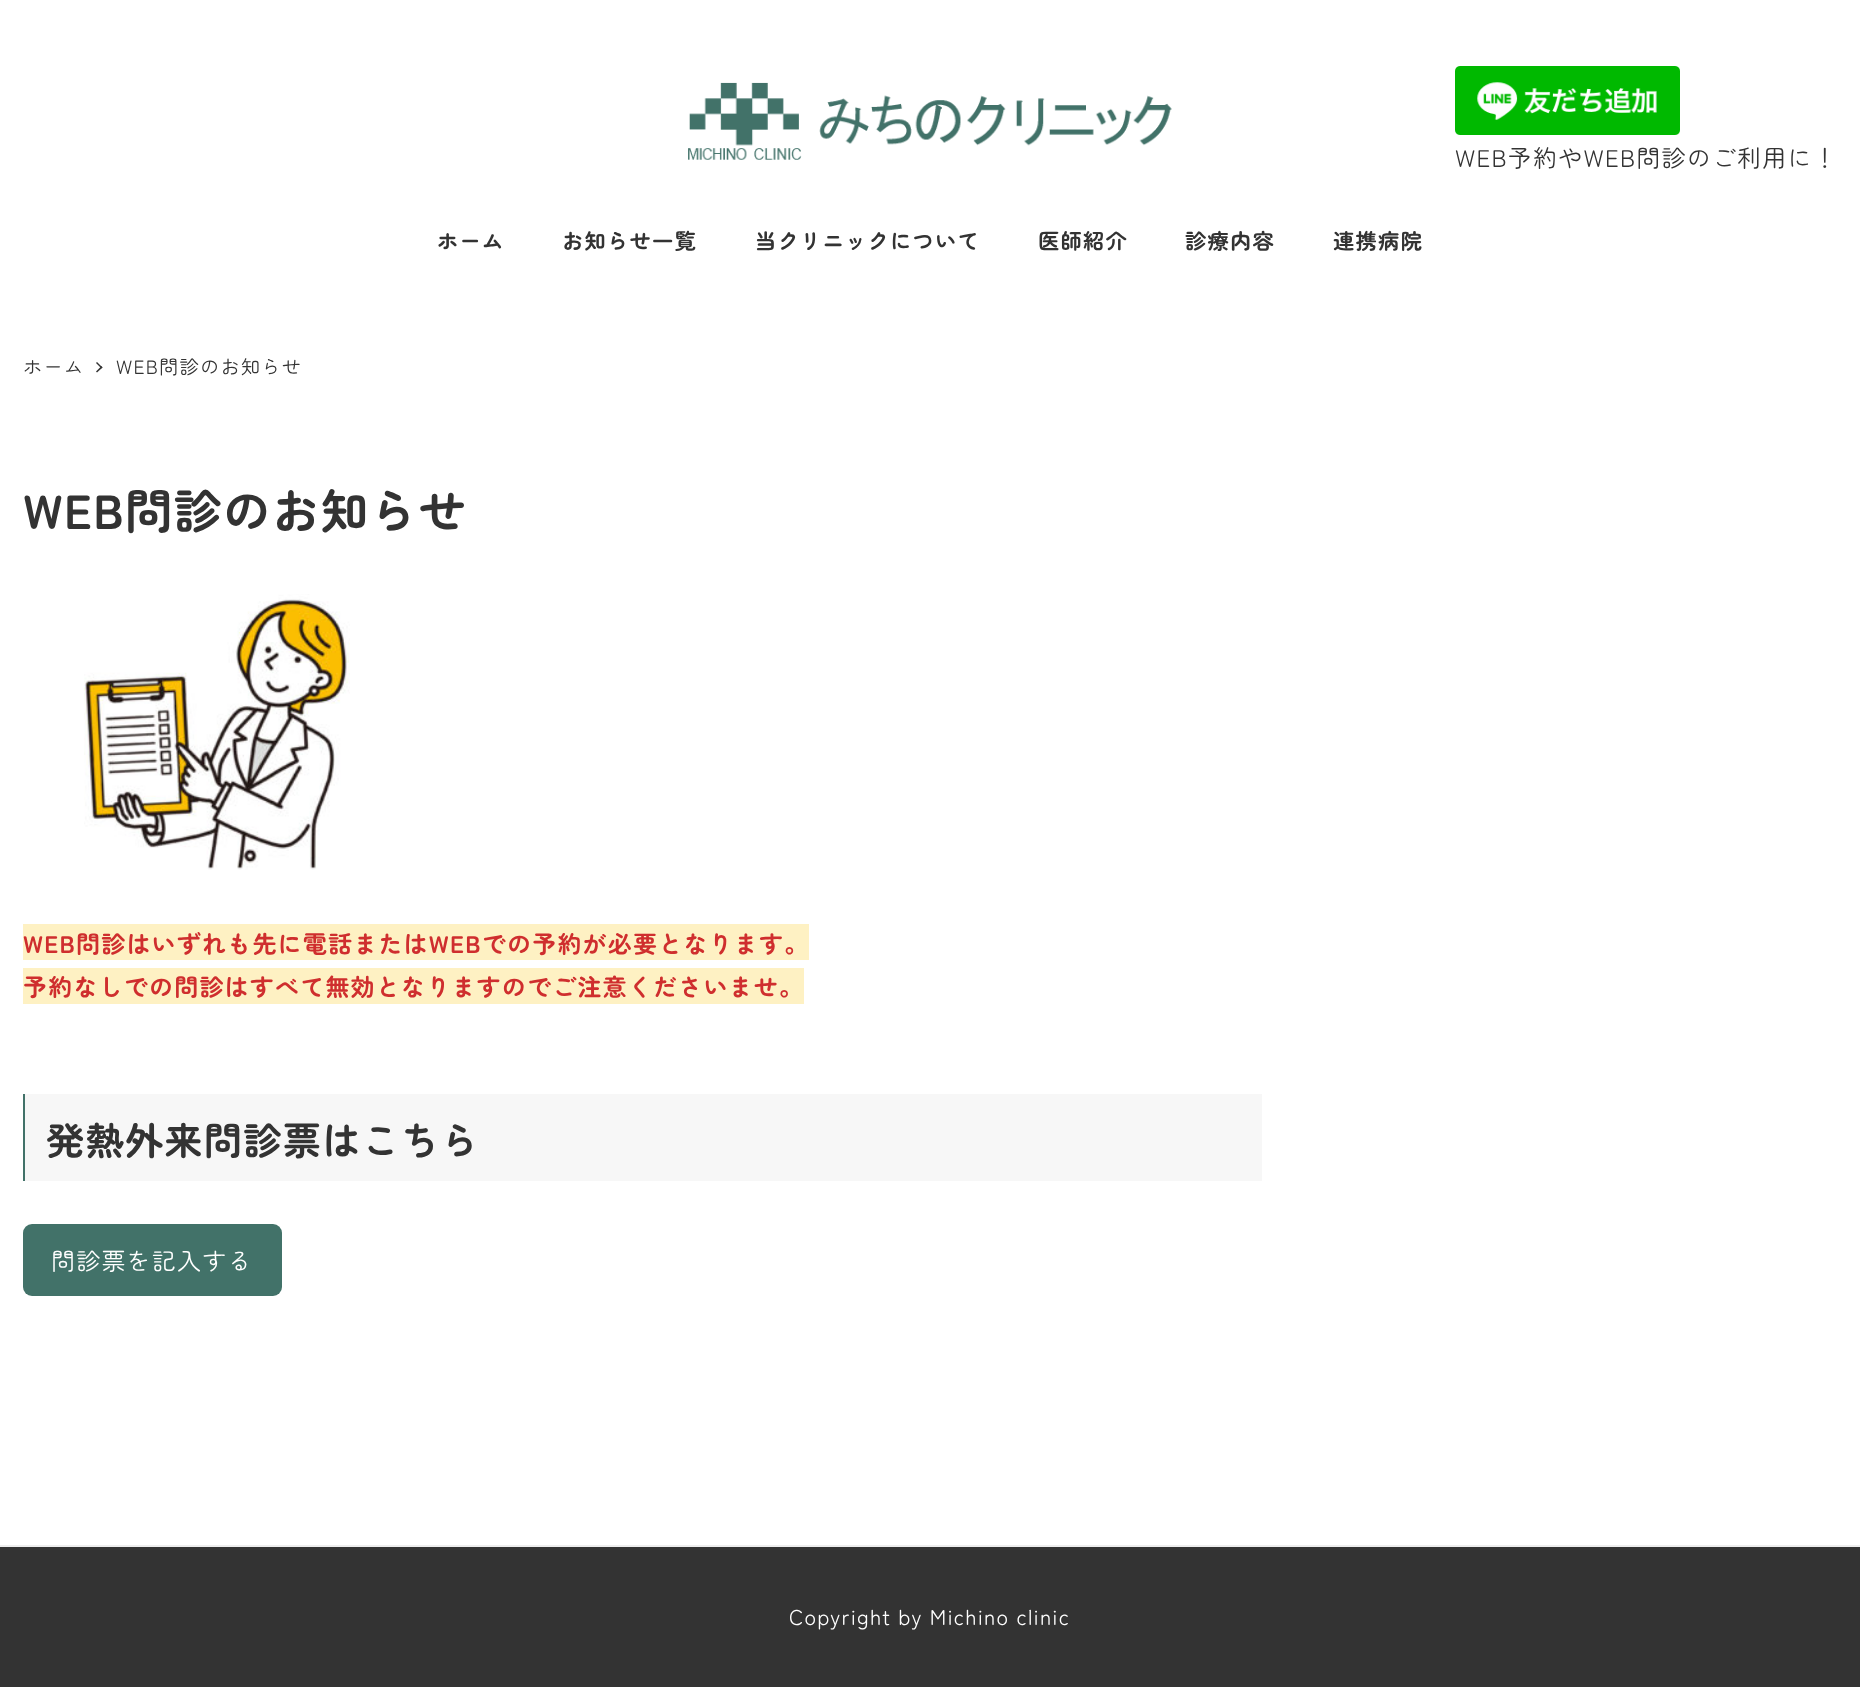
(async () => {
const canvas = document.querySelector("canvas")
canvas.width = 1860
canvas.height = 1687
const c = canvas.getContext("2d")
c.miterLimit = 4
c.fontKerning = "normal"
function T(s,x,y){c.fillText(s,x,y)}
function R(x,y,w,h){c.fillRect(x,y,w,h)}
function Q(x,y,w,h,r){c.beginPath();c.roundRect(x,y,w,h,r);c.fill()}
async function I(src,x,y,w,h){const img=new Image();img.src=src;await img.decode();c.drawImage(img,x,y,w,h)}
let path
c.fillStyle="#fff"
R(0,0,1860,1687)
await I("1.png",688,82,484,78)
await I("2.png",1455,66,225,69)
c.letterSpacing="1.2px"
c.font="24px Zen Maru Gothic"
c.fillStyle="#333"
T("WEB予約やWEB問診のご利用に！",1455,167)
c.font="bold 21.3px Zen Maru Gothic"
T("ホーム",437,249)
T("お知らせ一覧",562,249)
T("当クリニックについて",755,249)
T("医師紹介",1038,249)
T("診療内容",1185,249)
T("連携病院",1333,249)
c.font="19.25px Zen Maru Gothic"
T("ホーム",23,374)
path = new Path2D("M97 362l5.5 5.5l-1 1l-5.5-5.5z")
c.fill(path)
path = new Path2D("M101.5 366l1 1.5l-5.5 5l-1-1z")
c.fill(path)
T("WEB問診のお知らせ",116,374)
c.font="bold 47.75px Zen Maru Gothic"
T("WEB問診のお知らせ",23,529)
await I("3.png",84,594,266,276)
c.fillStyle="#fef1c3"
R(23,924,786,36)
c.font="bold 24px Zen Maru Gothic"
c.fillStyle="#cf2e2e"
T("WEB問診はいずれも先に電話またはWEBでの予約が必要となります。",23,953)
c.fillStyle="#fef1c3"
R(23,968,781,36)
c.fillStyle="#cf2e2e"
T("予約なしでの問診はすべて無効となりますのでご注意くださいませ。",23,996)
c.fillStyle="#f7f7f7"
R(25,1094,1237,87)
c.fillStyle="#427269"
R(23,1094,2,87)
c.font="bold 38.25px Zen Maru Gothic"
c.fillStyle="#333"
T("発熱外来問診票はこちら",46,1155)
c.fillStyle="#427269"
Q(23,1224,259,72,9)
c.font="24px Zen Maru Gothic"
c.fillStyle="#fff"
T("問診票を記入する",51,1270)
c.fillStyle="#eee"
R(0,1545,1860,2)
c.fillStyle="#333"
R(0,1547,1860,140)
c.font="21.3px Zen Maru Gothic"
c.fillStyle="#fff"
T("Copyright by Michino clinic",789,1625)
})()
